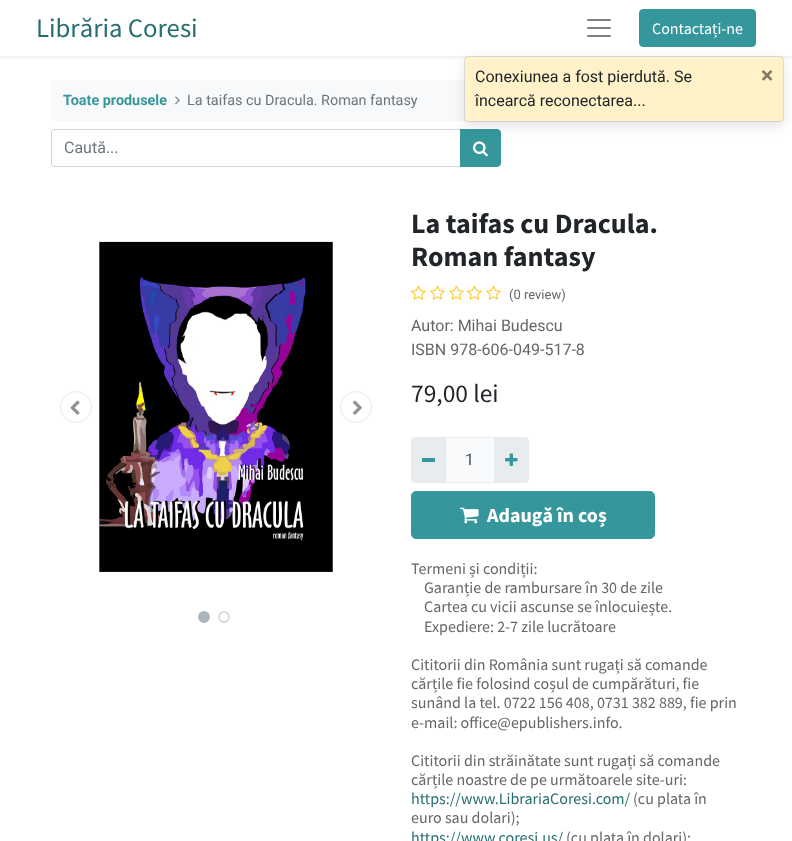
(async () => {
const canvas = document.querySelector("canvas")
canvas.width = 792
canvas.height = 841
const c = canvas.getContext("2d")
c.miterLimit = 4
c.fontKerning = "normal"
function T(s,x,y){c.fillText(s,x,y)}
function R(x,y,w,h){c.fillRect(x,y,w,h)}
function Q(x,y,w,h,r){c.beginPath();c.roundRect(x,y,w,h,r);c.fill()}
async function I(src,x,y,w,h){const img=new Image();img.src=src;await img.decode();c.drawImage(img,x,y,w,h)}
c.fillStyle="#fff"
R(0,0,792,841)
c.save()
c.beginPath()
c.rect(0,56,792,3)
c.clip()
c.fillStyle="#00000012"
c.filter="blur(2px)"
c.beginPath()
c.rect(0,2,792,56)
c.fill()
c.filter="none"
c.restore()
c.font="26.75px Source Sans Pro"
c.fillStyle="#276e72"
T("Librăria Coresi",36,37)
await I("1.png",587,19,24,18)
c.fillStyle="#35979c"
c.beginPath()
c.roundRect(639.5,9.5,116,37,3.5)
c.fill()
c.strokeStyle="#35979c"
c.stroke()
c.font="16px Source Sans Pro"
c.fillStyle="#fff"
T("Contactați-ne",652,34)
c.fillStyle="#f8f9fa"
Q(51,80,690,41,4)
c.font="bold 14.4px Roboto"
c.fillStyle="#35979c"
T("Toate produsele",63,105)
await I("2.png",175,96,5,9)
c.font="14.4px Roboto"
c.fillStyle="#6c757d"
T("La taifas cu Dracula. Roman fantasy",187,105)
c.beginPath()
c.roundRect(51.5,129.5,409,37,[3.5,0,0,3.5])
c.strokeStyle="#ced4da"
c.stroke()
c.font="16px Roboto"
T("Caută...",64,153)
c.fillStyle="#35979c"
c.beginPath()
c.roundRect(460.5,129.5,40,37,[0,3.5,3.5,0])
c.fill()
c.strokeStyle="#35979c"
c.stroke()
await I("3.png",473,141,15,16)
c.beginPath()
c.arc(76,407,15.5,0,7)
c.strokeStyle="#e7eaed"
c.stroke()
await I("4.png",70,400,10,15)
await I("5.png",97,241,236,331)
c.beginPath()
c.arc(356,407,15.5,0,7)
c.stroke()
await I("6.png",352,400,10,15)
c.fillStyle="#adb5bd"
c.beginPath()
c.arc(204,617,5,0,7)
c.fill()
c.strokeStyle="#adb5bd"
c.lineWidth=2
c.stroke()
c.beginPath()
c.arc(224,617,5,0,7)
c.strokeStyle="#d6dade"
c.stroke()
c.font="bold 28px Source Sans Pro"
c.fillStyle="#212529"
T("La taifas cu Dracula.",411,233)
T("Roman fantasy",411,266)
await I("7.png",411,285,15,15)
await I("7.png",430,285,15,15)
await I("7.png",449,285,15,15)
await I("7.png",467,285,15,15)
await I("7.png",486,285,15,15)
c.font="13px Roboto"
c.fillStyle="#646669"
T("(0 review)",509,299)
c.font="16px Roboto"
T("Autor: Mihai Budescu",411,331)
T("ISBN 978-606-049-517-8",411,355)
c.font="25.5px Source Sans Pro"
c.fillStyle="#212529"
T("79,00 lei",411,402)
c.fillStyle="#f8f9fa"
c.beginPath()
c.rect(445.5,437.5,49,45)
c.fill()
c.strokeStyle="#e9ecef"
c.lineWidth=1
c.stroke()
c.fillStyle="#e9ecef"
c.beginPath()
c.roundRect(411,437,35,46,[4,0,0,4])
c.fill()
c.fillStyle="#35979c"
R(422,458,13,4)
c.font="16px Roboto"
c.fillStyle="#495057"
T("1",465,465)
c.fillStyle="#e9ecef"
c.beginPath()
c.roundRect(494,437,35,46,[0,4,4,0])
c.fill()
await I("8.png",505,453,13,13)
c.fillStyle="#35979c"
c.beginPath()
c.roundRect(411.5,491.5,243,47,4.5)
c.fill()
c.strokeStyle="#35979c"
c.stroke()
await I("9.png",460,507,19,17)
c.font="bold 20px Source Sans Pro"
c.fillStyle="#fff"
T("Adaugă în coș",487,522)
c.font="16px Source Sans Pro"
c.fillStyle="#646669"
T("Termeni și condiții:",411,574)
T("Garanție de rambursare în 30 de zile",424,593)
T("Cartea cu vicii ascunse se înlocuiește.",424,612)
T("Expediere: 2-7 zile lucrătoare",424,632)
T("Cititorii din România sunt rugați să comande",411,670)
T("cărțile fie folosind coșul de cumpărături, fie",411,689)
T("sunând la tel. 0722 156 408, 0731 382 889, fie prin",411,708)
T("e-mail: office@epublishers.info.",411,728)
T("Cititorii din străinătate sunt rugați să comande",411,766)
T("cărțile noastre de pe următoarele site-uri:",411,785)
c.fillStyle="#276e72"
T("https://www.LibrariaCoresi.com/",411,804)
c.fillStyle="#646669"
T("(cu plata în",633,804)
T("euro sau dolari);",411,823)
c.fillStyle="#276e72"
T("https://www.coresi.us/",411,843)
c.fillStyle="#646669"
T("(cu plata în dolari);",566,843)
c.fillStyle="#0000001a"
c.filter="blur(6px)"
c.beginPath()
c.roundRect(464,60,320,66,4)
c.fill()
c.filter="none"
c.fillStyle="#ffc107"
Q(465,57,318,64,3)
c.beginPath()
c.roundRect(464.5,56.5,319,65,3.5)
c.strokeStyle="#0000001a"
c.stroke()
c.fillStyle="#ffffffc7"
Q(465,57,318,64,3)
c.font="16px Roboto"
c.fillStyle="#212529"
T("Conexiunea a fost pierdută. Se",475,82)
T("încearcă reconectarea...",475,106)
c.font="bold 23px Roboto"
c.fillStyle="#807964"
T("×",761,83)
})()
